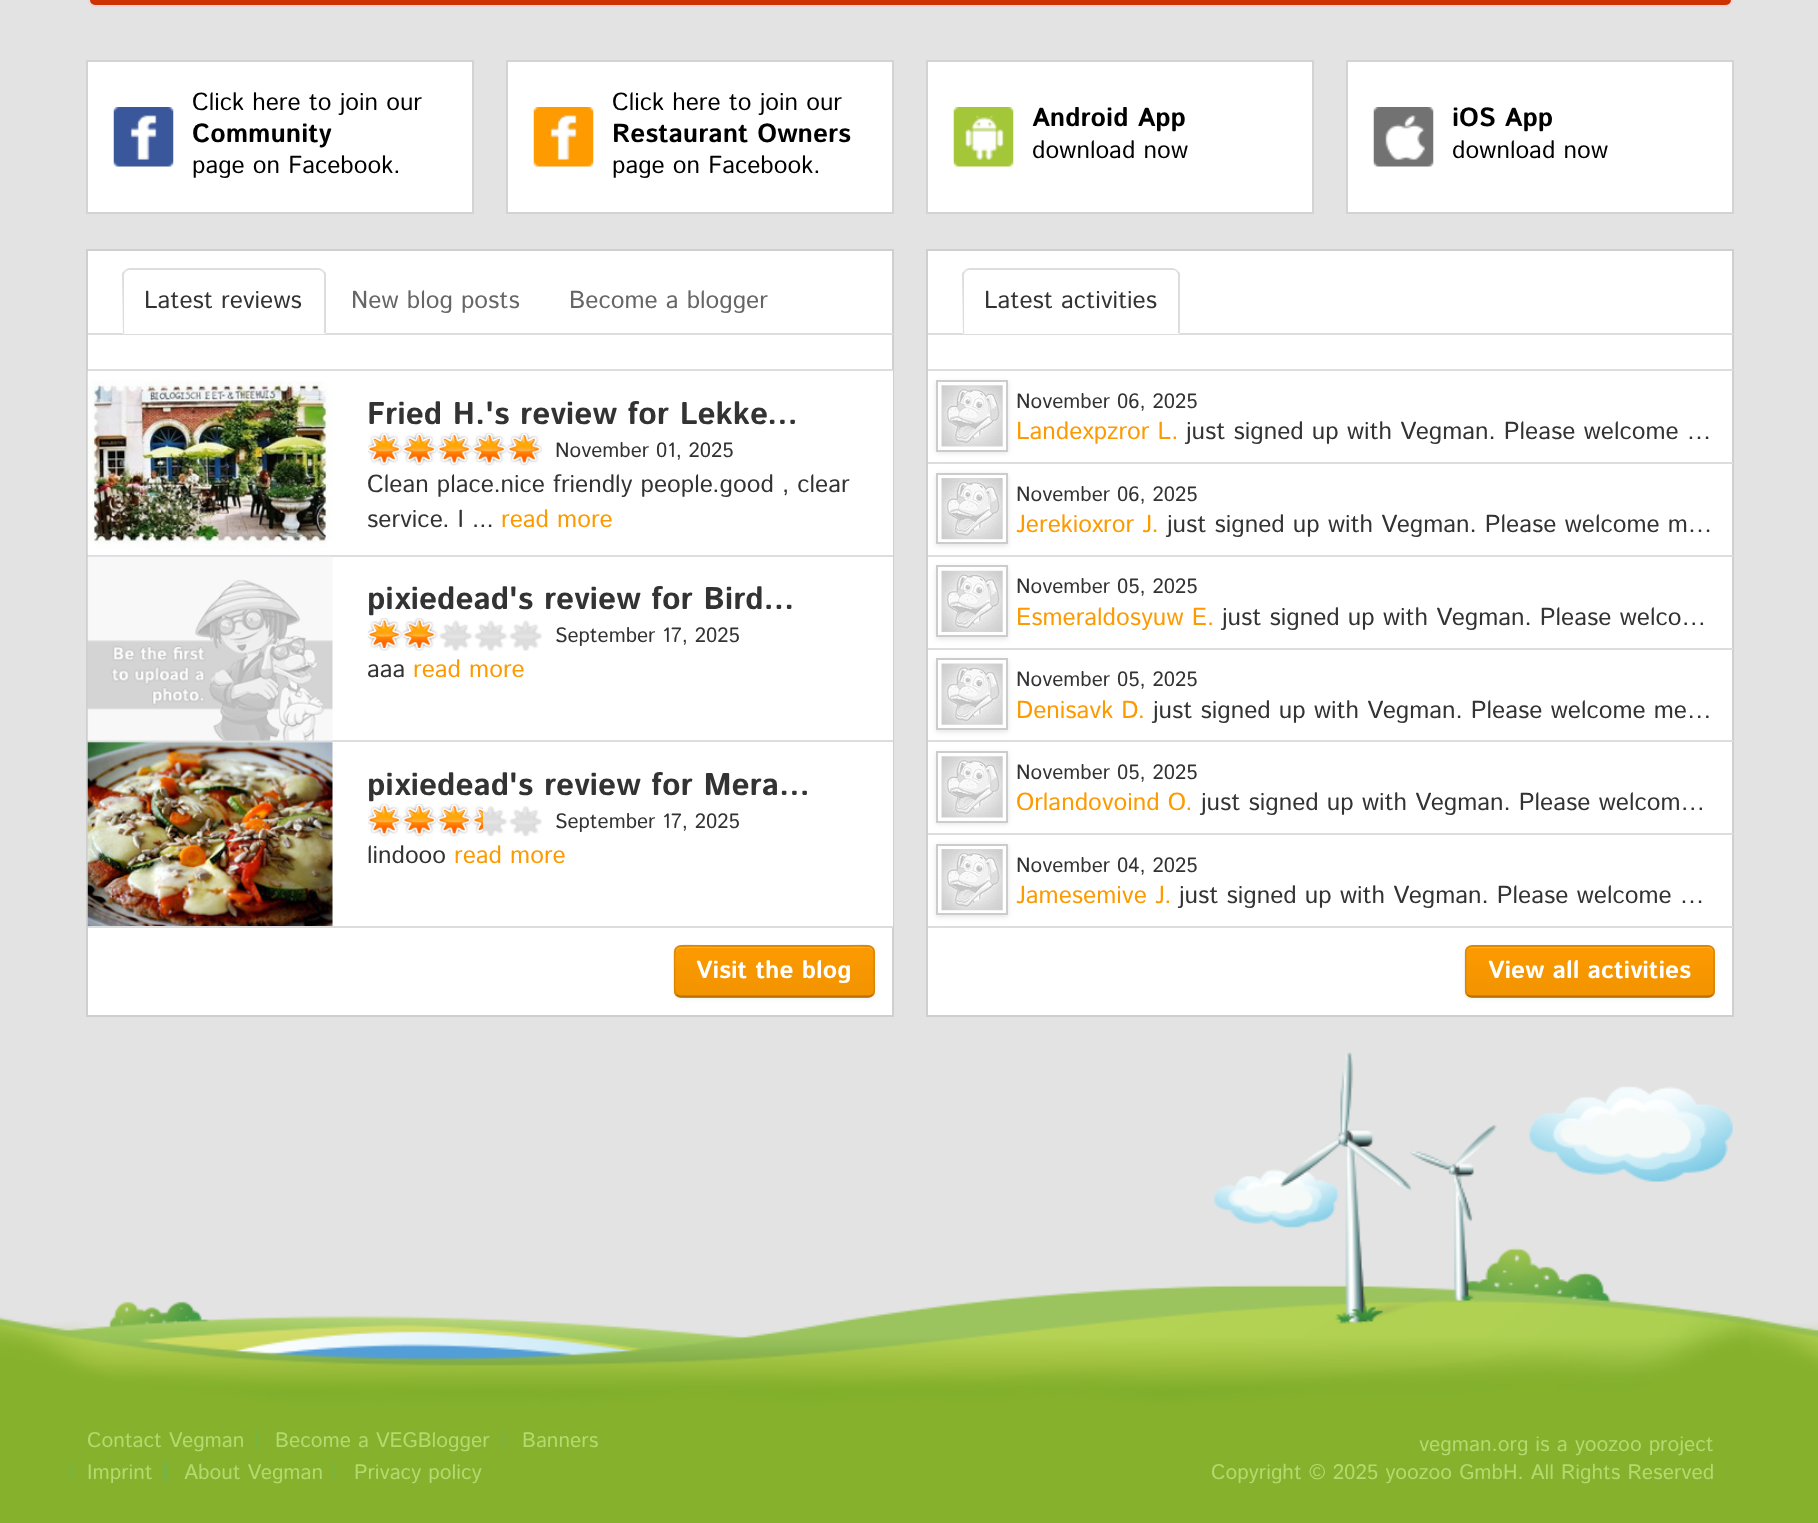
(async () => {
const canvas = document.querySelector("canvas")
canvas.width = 1818
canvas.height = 1523
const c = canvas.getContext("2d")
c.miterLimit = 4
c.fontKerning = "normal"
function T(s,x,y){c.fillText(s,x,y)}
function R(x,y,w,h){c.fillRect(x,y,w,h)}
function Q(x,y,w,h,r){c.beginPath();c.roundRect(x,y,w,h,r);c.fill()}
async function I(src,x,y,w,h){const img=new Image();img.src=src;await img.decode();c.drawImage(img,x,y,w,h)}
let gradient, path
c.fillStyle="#e3e3e3"
R(0,0,1818,1523)
c.fillStyle="#c30"
c.beginPath()
c.roundRect(89,-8,1643,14,6)
c.fill()
c.strokeStyle="#eed3d7"
c.lineWidth=2
c.stroke()
c.fillStyle="#fff"
R(88,62,384,150)
await I("1.png",113,107,61,60)
c.strokeStyle="#d5d2d2"
c.strokeRect(87,61,386,152)
c.font="24.5px Istok Web"
c.fillStyle="#000"
T("Click here to join our",192,110)
c.font="bold 26.25px Istok Web"
T("Community",192,142)
c.font="24.5px Istok Web"
T("page on Facebook.",192,173)
c.fillStyle="#fff"
R(508,62,384,150)
await I("2.png",533,107,61,60)
c.strokeRect(507,61,386,152)
c.fillStyle="#000"
T("Click here to join our",612,110)
c.font="bold 26.25px Istok Web"
T("Restaurant Owners",612,142)
c.font="24.5px Istok Web"
T("page on Facebook.",612,173)
c.fillStyle="#fff"
R(928,62,384,150)
await I("3.png",953,107,61,60)
c.strokeRect(927,61,386,152)
c.font="bold 26.25px Istok Web"
c.fillStyle="#000"
T("Android App",1032,126)
c.font="24.5px Istok Web"
T("download now",1032,158)
c.fillStyle="#fff"
R(1348,62,384,150)
await I("4.png",1373,107,61,60)
c.strokeRect(1347,61,386,152)
c.font="bold 26.25px Istok Web"
c.fillStyle="#000"
T("iOS App",1452,126)
c.font="24.5px Istok Web"
T("download now",1452,158)
c.fillStyle="#fff"
c.beginPath()
c.rect(87,250,806,766)
c.fill()
c.strokeStyle="#cfcfcf"
c.stroke()
c.fillStyle="#ddd"
R(88,333,805,2)
c.fillStyle="#fff"
c.beginPath()
c.roundRect(123,268,203,66,[7,7,0,0])
c.fill()
c.fillStyle="#ddd"
path = new Path2D("M130 268c-2 0-4 1-5 2l1 1l3-1h190l3 1l1-1c-1-1-3-2-5-2z")
c.fill(path)
path = new Path2D("M323 270l3 3v61l-3-2h1v-58l-2-3z")
c.fill(path)
path = new Path2D("M122 273l3-3l1 1l-2 3v58h1l-2 2z")
c.fill(path)
c.fillStyle="#333"
T("Latest reviews",144,308)
c.fillStyle="#666"
T("New blog posts",351,308)
T("Become a blogger",569,308)
c.fillStyle="#ddd"
R(88,369,805,2)
c.fillStyle="#fff"
R(892,371,1,184)
c.fillStyle="#ddd"
R(88,555,805,2)
await I("5.png",87,371,246,184)
c.font="bold 31.5px Istok Web"
c.fillStyle="#333"
T("Fried H.'s review for Lekke...",367,424)
await I("6.png",368,432,174,34)
c.font="20.75px Istok Web"
T("November 01, 2025",555,457)
c.font="24.5px Istok Web"
T("Clean place.nice friendly people.good , clear",367,492)
T("service. I ...",367,527)
c.fillStyle="#fc9a00"
T("read more",501,527)
c.fillStyle="#fff"
R(892,557,1,183)
c.fillStyle="#ddd"
R(88,740,805,2)
await I("7.png",87,556,246,185)
c.font="bold 31.5px Istok Web"
c.fillStyle="#333"
T("pixiedead's review for Bird...",367,609)
await I("8.png",367,618,71,33)
await I("9.png",439,620,103,31)
c.font="20.75px Istok Web"
T("September 17, 2025",555,642)
c.font="24.5px Istok Web"
T("aaa",367,677)
c.fillStyle="#fc9a00"
T("read more",413,677)
c.fillStyle="#fff"
R(892,742,1,184)
c.fillStyle="#ddd"
R(88,926,805,2)
await I("10.png",87,742,246,184)
c.font="bold 31.5px Istok Web"
c.fillStyle="#333"
T("pixiedead's review for Mera...",367,795)
await I("11.png",368,803,115,34)
await I("12.png",483,806,59,31)
c.font="20.75px Istok Web"
T("September 17, 2025",555,828)
c.font="24.5px Istok Web"
T("lindooo",367,863)
c.fillStyle="#fc9a00"
T("read more",454,863)
c.fillStyle="#0000000d"
c.filter="blur(2px)"
c.beginPath()
c.roundRect(674,947,201,52,7)
c.fill()
c.filter="none"
c.fillStyle="#f89700"
Q(674,945,201,53,7)
c.save()
c.beginPath()
c.roundRect(674,945,201,53,7)
c.clip()
gradient = c.createLinearGradient(774,947,774,996)
gradient.addColorStop(0,"#fc9a00")
gradient.addColorStop(1,"#f29400")
c.fillStyle = gradient
R(674,947,201,49)
c.restore()
c.fillStyle="#fdae33"
path = new Path2D("M681 948h187c3 0 5 3 5 6v-2c0-3-2-5-5-5h-187c-3 0-5 2-5 5v2c0-3 2-6 5-6z")
c.fill(path)
path = new Path2D("M872.5 995c-1.5 1-3 1.5-4.5 1.5h-187c-2 0-3.5-.5-4.5-1.5")
c.strokeStyle="#00000040"
c.lineWidth=1.8
c.stroke(path)
path = new Path2D("M676.5 995c-3.5-3.5-2-13.5-2-17.5c0-39-6-31.5 37.5-31.5h125c43 0 37-7.5 37 31.5c0 4 2 14-1.5 17.5")
c.strokeStyle="#0000001a"
c.stroke(path)
c.font="bold 24.5px Istok Web"
c.fillStyle="#fff"
T("Visit the blog",696,978)
c.beginPath()
c.rect(927,250,806,766)
c.fill()
c.strokeStyle="#cfcfcf"
c.lineWidth=2
c.stroke()
c.fillStyle="#ddd"
R(928,333,805,2)
c.fillStyle="#fff"
c.beginPath()
c.roundRect(963,268,217,66,[7,7,0,0])
c.fill()
c.fillStyle="#ddd"
path = new Path2D("M970 268c-2 0-4 1-5 2l1 1c1-1 3-1 4-1h202c1 0 3 0 4 1l1-1c-1-1-3-2-5-2z")
c.fill(path)
path = new Path2D("M1177 270l3 3v61l-3-2h1v-58l-2-3z")
c.fill(path)
path = new Path2D("M962 273l3-3l1 1l-2 3v58h1l-2 2z")
c.fill(path)
c.font="24.5px Istok Web"
c.fillStyle="#333"
T("Latest activities",984,308)
c.fillStyle="#ddd"
R(928,369,805,2)
R(928,462,805,2)
c.fillStyle="#0000001a"
c.filter="blur(2.5px)"
c.beginPath()
c.rect(936,382,72,71)
c.fill()
c.filter="none"
c.fillStyle="#fff"
c.beginPath()
c.rect(937,381,70,70)
c.fill()
c.strokeStyle="#ccc"
c.stroke()
await I("13.png",941,385,62,62)
c.font="20.75px Istok Web"
c.fillStyle="#333"
T("November 06, 2025",1016,408)
c.font="24.5px Istok Web"
c.fillStyle="#fc9a00"
T("Landexpzror L.",1016,439)
c.fillStyle="#333"
T("just signed up with Vegman. Please welcome …",1186,439)
c.fillStyle="#ddd"
R(928,555,805,2)
c.fillStyle="#0000001a"
c.filter="blur(2.5px)"
c.beginPath()
c.rect(936,474,72,72)
c.fill()
c.filter="none"
c.fillStyle="#fff"
c.beginPath()
c.rect(937,474,70,69)
c.fill()
c.stroke()
await I("14.png",941,478,62,62)
c.font="20.75px Istok Web"
c.fillStyle="#333"
T("November 06, 2025",1016,501)
c.font="24.5px Istok Web"
c.fillStyle="#fc9a00"
T("Jerekioxror J.",1016,532)
c.fillStyle="#333"
T("just signed up with Vegman. Please welcome m…",1167,532)
c.fillStyle="#ddd"
R(928,648,805,2)
c.fillStyle="#0000001a"
c.filter="blur(2.5px)"
c.beginPath()
c.rect(936,567,72,72)
c.fill()
c.filter="none"
c.fillStyle="#fff"
c.beginPath()
c.rect(937,566,70,70)
c.fill()
c.stroke()
await I("15.png",941,570,62,62)
c.font="20.75px Istok Web"
c.fillStyle="#333"
T("November 05, 2025",1016,593)
c.font="24.5px Istok Web"
c.fillStyle="#fc9a00"
T("Esmeraldosyuw E.",1016,625)
c.fillStyle="#333"
T("just signed up with Vegman. Please welco…",1222,625)
c.fillStyle="#ddd"
R(928,740,805,2)
c.fillStyle="#0000001a"
c.filter="blur(2.5px)"
c.beginPath()
c.rect(936,660,72,72)
c.fill()
c.filter="none"
c.fillStyle="#fff"
c.beginPath()
c.rect(937,659,70,70)
c.fill()
c.stroke()
await I("16.png",941,663,62,62)
c.font="20.75px Istok Web"
c.fillStyle="#333"
T("November 05, 2025",1016,686)
c.font="24.5px Istok Web"
c.fillStyle="#fc9a00"
T("Denisavk D.",1016,718)
c.fillStyle="#333"
T("just signed up with Vegman. Please welcome me…",1153,718)
c.fillStyle="#ddd"
R(928,833,805,2)
c.fillStyle="#0000001a"
c.filter="blur(2.5px)"
c.beginPath()
c.rect(936,753,72,71)
c.fill()
c.filter="none"
c.fillStyle="#fff"
c.beginPath()
c.rect(937,752,70,70)
c.fill()
c.stroke()
await I("13.png",941,756,62,62)
c.font="20.75px Istok Web"
c.fillStyle="#333"
T("November 05, 2025",1016,779)
c.font="24.5px Istok Web"
c.fillStyle="#fc9a00"
T("Orlandovoind O.",1016,810)
c.fillStyle="#333"
T("just signed up with Vegman. Please welcom…",1201,810)
c.fillStyle="#ddd"
R(928,926,805,2)
c.fillStyle="#0000001a"
c.filter="blur(2.5px)"
c.beginPath()
c.rect(936,845,72,72)
c.fill()
c.filter="none"
c.fillStyle="#fff"
c.beginPath()
c.rect(937,845,70,69)
c.fill()
c.stroke()
await I("14.png",941,849,62,62)
c.font="20.75px Istok Web"
c.fillStyle="#333"
T("November 04, 2025",1016,872)
c.font="24.5px Istok Web"
c.fillStyle="#fc9a00"
T("Jamesemive J.",1016,903)
c.fillStyle="#333"
T("just signed up with Vegman. Please welcome …",1179,903)
c.fillStyle="#0000000d"
c.filter="blur(2px)"
c.beginPath()
c.roundRect(1465,947,250,52,7)
c.fill()
c.filter="none"
c.fillStyle="#f89700"
Q(1465,945,250,53,7)
c.save()
c.beginPath()
c.roundRect(1465,945,250,53,7)
c.clip()
gradient = c.createLinearGradient(1590,947,1590,996)
gradient.addColorStop(0,"#fc9a00")
gradient.addColorStop(1,"#f29400")
c.fillStyle = gradient
R(1465,947,250,49)
c.restore()
c.fillStyle="#fdae33"
path = new Path2D("M1472 948h236c3 0 5 3 5 6v-2c0-3-2-5-5-5h-236c-2 0-4 2-5 4c1-2 3-3 5-3z")
c.fill(path)
path = new Path2D("M1712.5 995c-1.5 1-3 1.5-4.5 1.5h-236c-2 0-3.5-.5-4.5-1.5")
c.strokeStyle="#00000040"
c.lineWidth=1.8
c.stroke(path)
path = new Path2D("M1467.5 995c-1-1.5-2-3-2-4.5v-38.5c0-1.5 1-3 2-4.5c1-1 2.5-1.5 4.5-1.5h236c1.5 0 3 .5 4.5 1.5c1 1.5 1.5 3 1.5 4.5v38.5c0 1.5-.5 3-1.5 4.5")
c.strokeStyle="#0000001a"
c.stroke(path)
c.font="bold 24.5px Istok Web"
c.fillStyle="#fff"
T("View all activities",1488,978)
await I("17.png",0,1052,1818,357)
c.fillStyle="#85b12d"
R(0,1409,1818,114)
c.font="21px Istok Web"
c.fillStyle="#b3da6e"
T("Contact Vegman",87,1447)
c.fillStyle="#78b441"
R(255,1430,3,20)
c.fillStyle="#b3da6e"
T("Become a VEGBlogger",275,1447)
await I("18.png",502,1430,2,20)
T("Banners",522,1447)
await I("19.png",70,1461,2,20)
T("Imprint",87,1479)
c.fillStyle="#78b441"
R(164,1461,3,20)
c.fillStyle="#b3da6e"
T("About Vegman",184,1479)
await I("20.png",334,1461,2,20)
T("Privacy policy",354,1479)
T("vegman.org is a yoozoo project",1419,1451)
T("Copyright © 2025 yoozoo GmbH. All Rights Reserved",1211,1479)
})()
